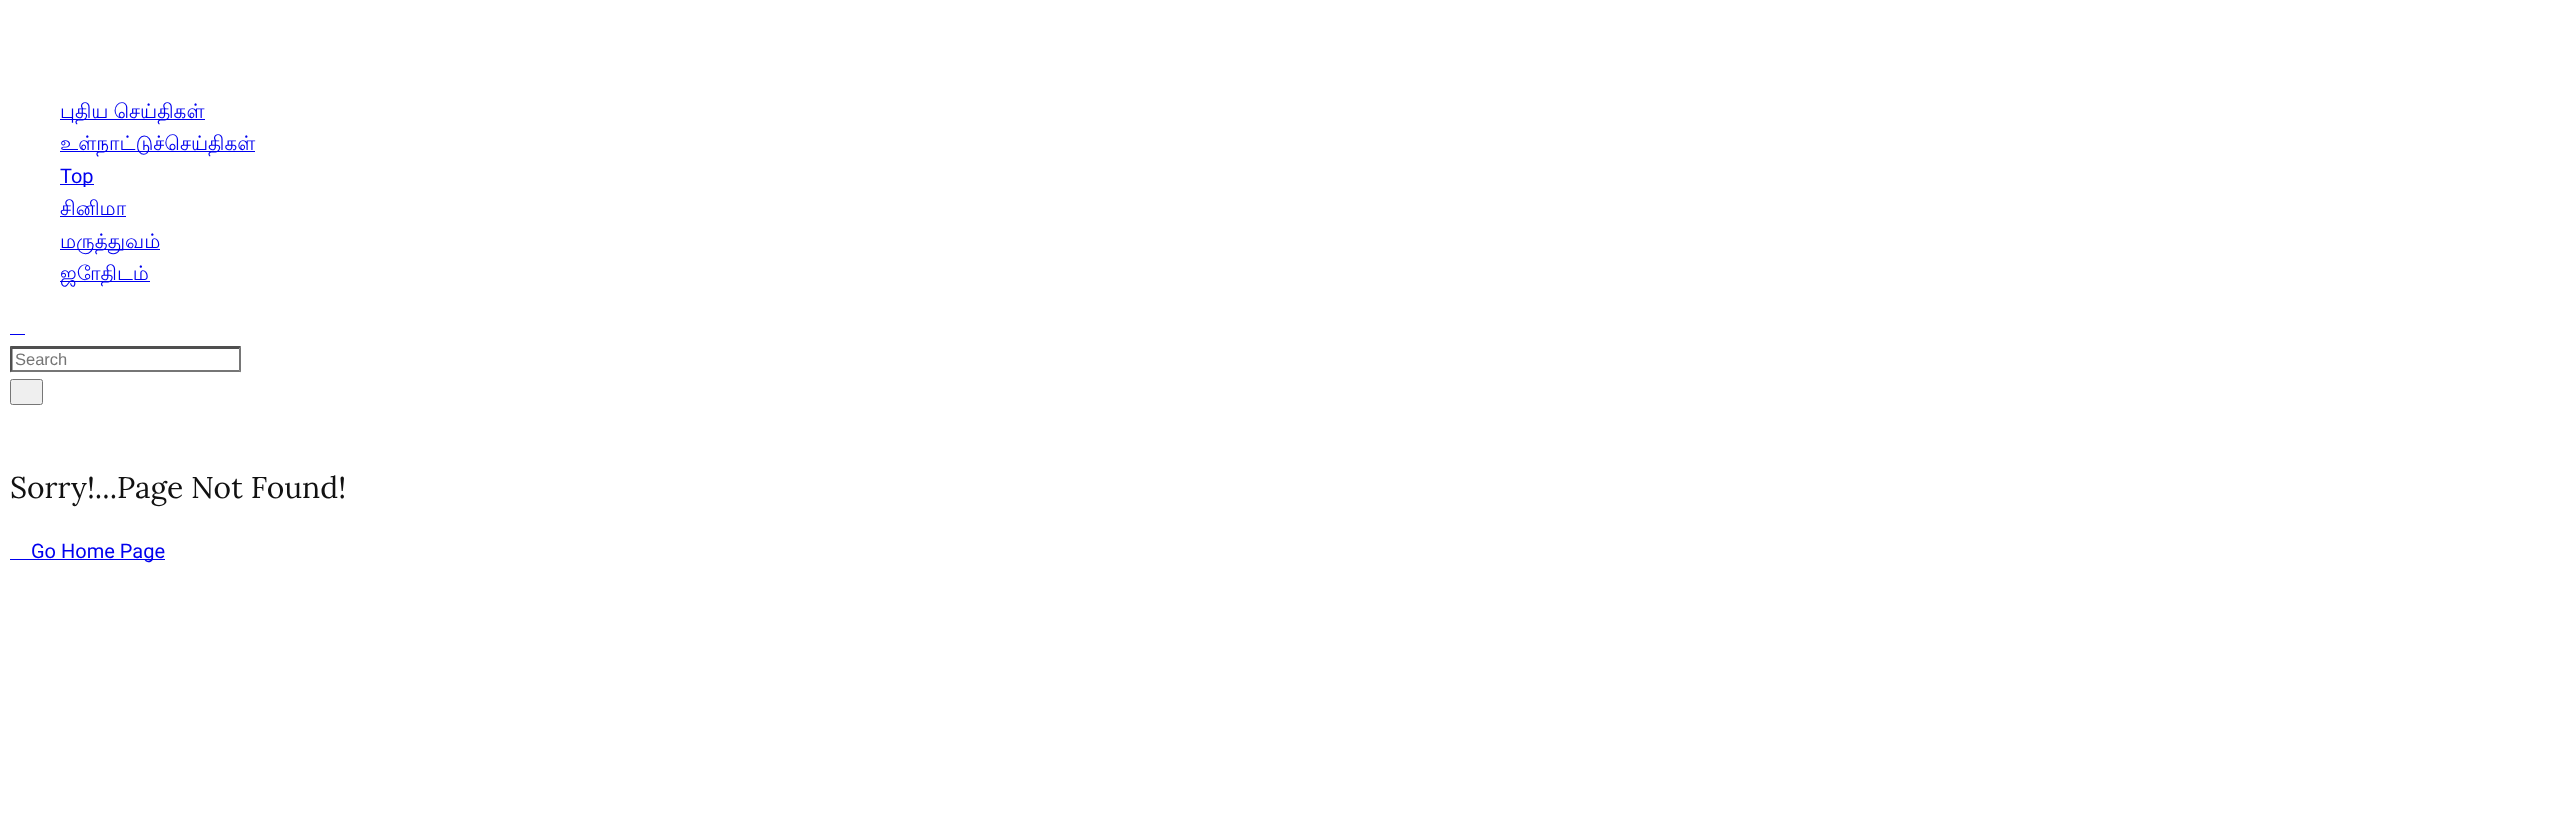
(async () => {
const canvas = document.querySelector("canvas")
canvas.width = 2559
canvas.height = 821
const c = canvas.getContext("2d")
c.miterLimit = 4
c.fontKerning = "normal"
function T(s,x,y){c.fillText(s,x,y)}
function R(x,y,w,h){c.fillRect(x,y,w,h)}
let path
c.fillStyle="#fff"
R(0,0,2559,821)
c.fillStyle="#00e"
R(60,119,145,1)
c.wordSpacing="-1px"
c.font="20px Lohit Tamil"
T("புதிய செய்திகள்",60,118)
R(60,151,195,1)
c.wordSpacing="0px"
T("உள்நாட்டுச்செய்திகள்",60,150)
R(60,184,34,1)
c.font="20px Roboto"
T("Top",60,183)
c.font="20px Lohit Tamil"
T("சினிமா",60,215)
R(60,216,66,1)
R(60,249,100,1)
T("மருத்துவம்",60,248)
R(60,281,90,1)
T("ஜோதிடம்",60,280)
R(10,334,15,1)
c.fillStyle="#4f4f4f"
path = new Path2D("M10 346h231l-2 3h-227z")
c.fill(path)
c.fillStyle="#767676"
path = new Path2D("M241 346v26.5l-2-2.5v-21z")
c.fill(path)
path = new Path2D("M241 372h-231l2-2h227z")
c.fill(path)
c.fillStyle="#4f4f4f"
path = new Path2D("M10 372.5v-26.5l2.5 3v21z")
c.fill(path)
c.font="16.5px Liberation Sans"
c.fillStyle="#757575"
T("Search",15,365)
c.fillStyle="#efefef"
c.beginPath()
c.roundRect(10.5,379.5,32,25,2)
c.fill()
c.strokeStyle="#767676"
c.stroke()
c.font="30px Lora"
c.fillStyle="#111"
T("Sorry!...Page Not Found!",10,498)
c.fillStyle="#00e"
R(10,559,155,1)
c.font="20px Roboto"
T("Go Home Page",31,558)
})()
